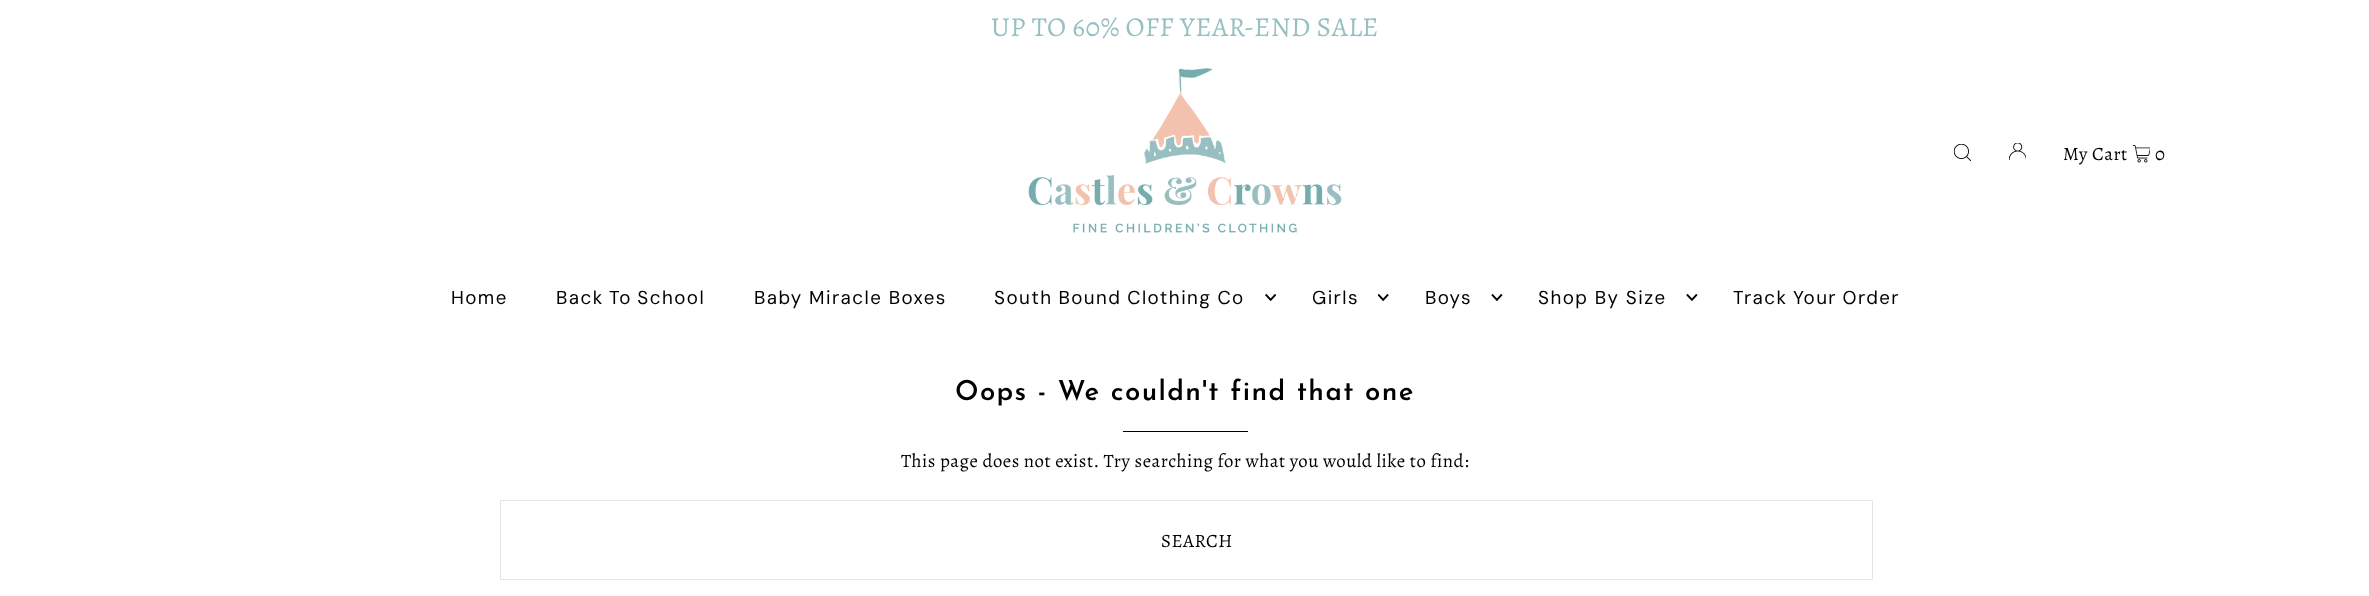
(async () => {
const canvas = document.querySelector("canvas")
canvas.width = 2369
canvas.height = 596
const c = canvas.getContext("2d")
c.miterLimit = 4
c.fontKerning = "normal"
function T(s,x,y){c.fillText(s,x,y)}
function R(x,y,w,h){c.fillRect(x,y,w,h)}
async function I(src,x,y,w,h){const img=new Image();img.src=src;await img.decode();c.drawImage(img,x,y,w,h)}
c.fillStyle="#fff"
R(0,0,2369,596)
c.letterSpacing="0.47px"
c.font="27.5px Alegreya"
c.fillStyle="#98c0c2"
T("UP TO 60% OFF YEAR-END SALE",991,36)
await I("1.png",1028,68,314,165)
await I("2.png",1954,144,17,17)
await I("3.png",2009,143,17,17)
c.font="18.75px Alegreya"
c.fillStyle="#000"
T("My Cart",2063,160)
await I("4.png",2133,145,17,18)
T("0",2155,160)
c.letterSpacing="1.4px"
c.font="18.75px DM Sans"
T("Home",451,304)
c.wordSpacing="-1px"
T("Back To School",556,304)
c.wordSpacing="0px"
T("Baby Miracle Boxes",754,304)
c.wordSpacing="-0.5px"
T("South Bound Clothing Co",994,304)
await I("5.png",1265,294,11,7)
c.wordSpacing="0px"
T("Girls",1312,304)
await I("6.png",1378,294,11,7)
T("Boys",1425,304)
await I("7.png",1491,294,12,7)
T("Shop By Size",1538,304)
await I("7.png",1686,294,12,7)
c.wordSpacing="-1px"
T("Track Your Order",1733,304)
c.wordSpacing="0px"
c.font="600 27.5px Josefin Sans"
T("Oops - We couldn't find that one",955,400)
R(1123,431,125,1)
c.letterSpacing="0.47px"
c.font="18.75px Alegreya"
T("This page does not exist. Try searching for what you would like to find:",901,467)
c.strokeStyle="#e5e5e5"
c.strokeRect(500.5,500.5,1372,79)
T("SEARCH",1161,547)
})()
